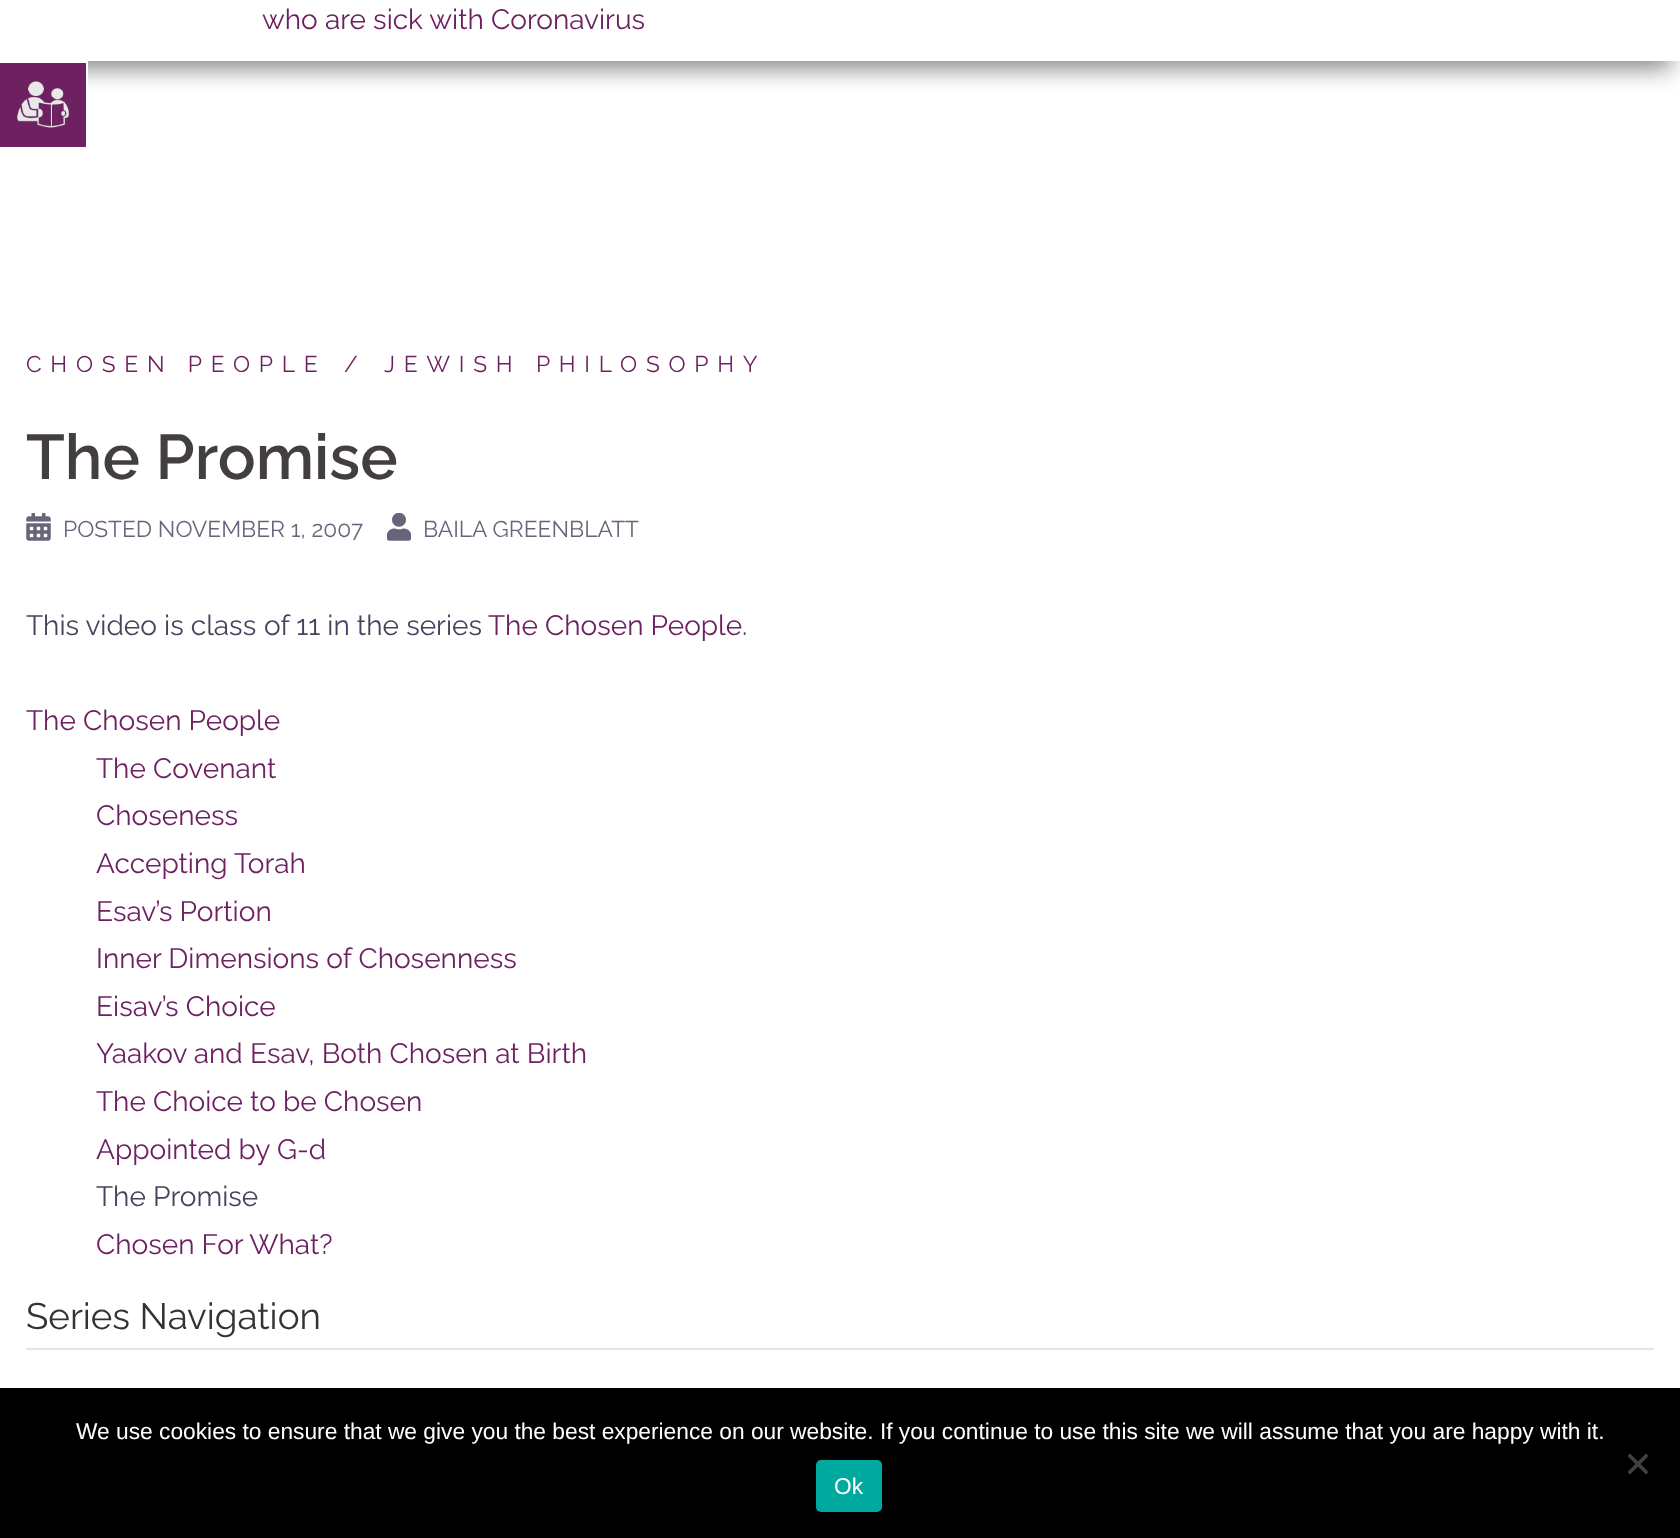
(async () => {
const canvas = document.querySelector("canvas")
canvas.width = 1680
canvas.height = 1538
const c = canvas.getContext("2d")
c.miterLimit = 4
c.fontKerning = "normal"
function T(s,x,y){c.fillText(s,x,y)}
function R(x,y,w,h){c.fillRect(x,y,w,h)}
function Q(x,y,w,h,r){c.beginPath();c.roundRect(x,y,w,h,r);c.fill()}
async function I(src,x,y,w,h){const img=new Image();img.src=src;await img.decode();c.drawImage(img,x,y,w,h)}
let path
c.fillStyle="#fff"
R(0,0,1680,1538)
c.save()
c.beginPath()
c.rect(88,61,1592,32)
c.clip()
c.fillStyle="#808080"
c.filter="blur(12px)"
c.beginPath()
c.rect(9,-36,1662,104)
c.fill()
c.filter="none"
c.restore()
c.font="28px Raleway"
c.fillStyle="#6d2161"
T("who are sick with Coronavirus",262,29)
R(0,63,86,84)
c.fillStyle="#fff"
R(0,61,88,2)
R(86,61,2,32)
await I("1.png",17,81,53,47)
c.letterSpacing="8.75px"
c.font="22.75px Raleway"
c.fillStyle="#6d2161"
T("CHOSEN PEOPLE",26,372)
T("/",344,372)
T("JEWISH PHILOSOPHY",384,372)
c.letterSpacing="0px"
c.font="600 63px Raleway"
c.fillStyle="#443f3f"
T("The Promise",26,479)
await I("2.png",26,513,25,28)
c.font="22.75px Raleway"
c.fillStyle="#68647a"
T("POSTED NOVEMBER 1, 2007",63,537)
await I("3.png",387,513,24,28)
T("BAILA GREENBLATT",423,537)
c.font="28px Raleway"
c.fillStyle="#47425d"
T("This video is class",26,635)
T("of 11 in the series",264,635)
c.fillStyle="#6d2161"
T("The Chosen People",488,635)
c.fillStyle="#47425d"
T(".",742,635)
c.fillStyle="#6d2161"
T("The Chosen People",26,730)
T("The Covenant",96,778)
T("Choseness",96,825)
T("Accepting Torah",96,873)
T("Esav’s Portion",96,921)
T("Inner Dimensions of Chosenness",96,968)
T("Eisav’s Choice",96,1016)
T("Yaakov and Esav, Both Chosen at Birth",96,1063)
T("The Choice to be Chosen",96,1111)
T("Appointed by G-d",96,1159)
c.fillStyle="#47425d"
T("The Promise",96,1206)
c.fillStyle="#6d2161"
T("Chosen For What?",96,1254)
c.fillStyle="#e5e5e5"
R(26,1348,1628,2)
c.font="36.75px Raleway"
c.fillStyle="#333"
T("Series Navigation",26,1329)
c.fillStyle="#000"
R(0,1388,1680,150)
c.font="22.75px Liberation Sans"
c.fillStyle="#fff"
T("We use cookies to ensure that we give you the best experience on our website. If you continue to use this site we will assume that you are happy with it.",76,1439)
c.fillStyle="#404040"
path = new Path2D("M1646 1453.5l2.5 2.5l-18.5 18.5l-2.5-2.5z")
c.fill(path)
path = new Path2D("M1627.5 1456l2.5-2.5l18.5 18.5l-2.5 2.5z")
c.fill(path)
c.fillStyle="#00a99d"
Q(816,1460,66,52,5)
c.fillStyle="#fff"
T("Ok",834,1494)
})()
